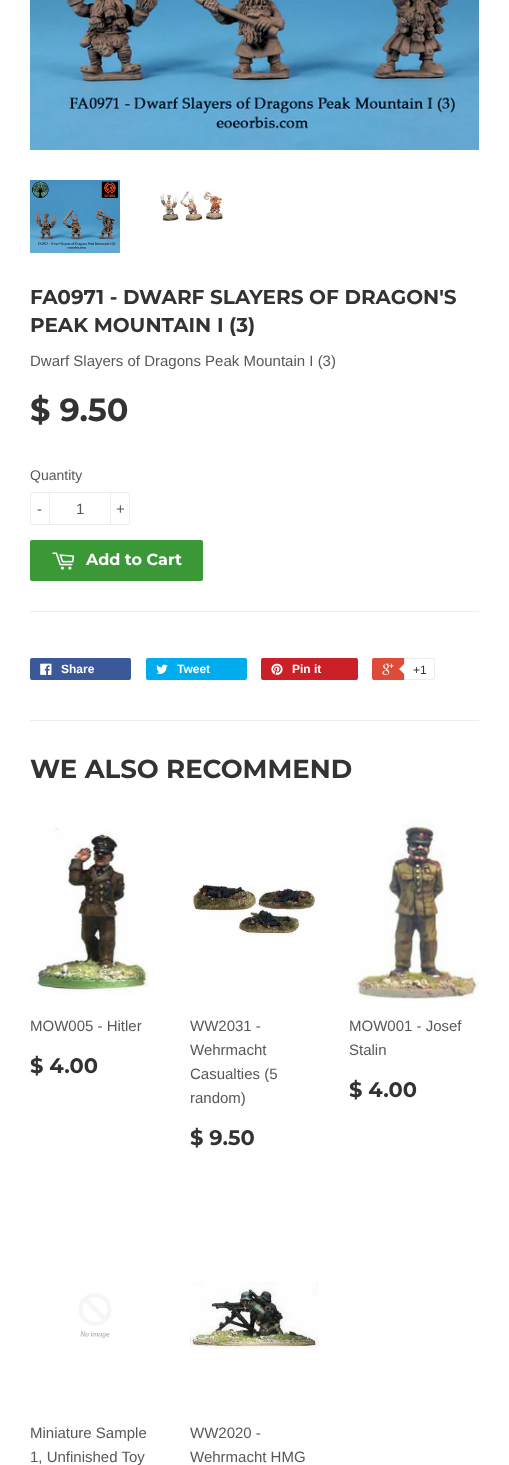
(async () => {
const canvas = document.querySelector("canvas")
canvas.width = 509
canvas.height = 1465
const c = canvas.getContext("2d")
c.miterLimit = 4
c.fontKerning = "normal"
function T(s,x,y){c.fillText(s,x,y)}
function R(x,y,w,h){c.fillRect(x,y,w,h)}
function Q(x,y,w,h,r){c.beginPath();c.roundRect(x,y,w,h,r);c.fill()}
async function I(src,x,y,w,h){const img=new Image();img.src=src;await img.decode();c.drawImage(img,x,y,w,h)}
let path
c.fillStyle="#fff"
R(0,0,509,1465)
await I("1.png",30,0,449,150)
await I("2.png",30,180,90,73)
await I("3.png",159,191,66,30)
c.font="100 20px Montserrat"
c.fillStyle="#333"
T("FA0971 - DWARF SLAYERS OF DRAGON'S",30,304)
T("PEAK MOUNTAIN I (3)",30,332)
c.font="15px Liberation Sans"
c.fillStyle="#585858"
T("Dwarf Slayers of Dragons Peak Mountain I (3)",30,366)
c.font="100 32px Montserrat"
c.fillStyle="#333"
T("$ 9.50",30,421)
c.font="14px Liberation Sans"
c.fillStyle="#585858"
T("Quantity",30,480)
c.beginPath()
c.roundRect(30.5,492.5,99,32,1.5)
c.strokeStyle="#ececec"
c.stroke()
c.fillStyle="#ececec"
R(49,492,1,33)
c.font="15px Liberation Sans"
c.fillStyle="#585858"
T("-",37,514)
T("1",76,514)
c.fillStyle="#ececec"
R(110,492,1,33)
c.fillStyle="#585858"
T("+",116,514)
c.fillStyle="#3a9837"
Q(30,540,173,41,2)
await I("4.png",52,552,23,18)
c.font="100 16px Montserrat"
c.fillStyle="#fff"
T("Add to Cart",86,565)
c.fillStyle="#ececec"
R(30,611,449,1)
c.fillStyle="#3b5998"
Q(30,658,101,22,2)
await I("5.png",40,663,12,12)
c.font="bold 12px Liberation Sans"
c.fillStyle="#fff"
T("Share",61,673)
c.fillStyle="#00aced"
Q(146,658,101,22,2)
await I("6.png",156,664,12,10)
c.fillStyle="#fff"
T("Tweet",177,673)
c.fillStyle="#cb2027"
Q(261,658,97,22,2)
await I("7.png",271,663,12,12)
c.fillStyle="#fff"
T("Pin it",292,673)
c.fillStyle="#dd4b39"
Q(372,658,61,22,2)
await I("8.png",382,663,12,12)
c.fillStyle="#fff"
c.beginPath()
c.roundRect(404.5,658.5,30,21,[0,1.5,1.5,0])
c.fill()
c.stroke()
c.fillStyle="#ececec"
path = new Path2D("M405 663v12l-6-6z")
c.fill(path)
c.fillStyle="#fff"
path = new Path2D("M406 663v12l-6-6z")
c.fill(path)
c.font="12px Liberation Sans"
c.fillStyle="#333"
T("+1",413,674)
c.fillStyle="#ececec"
R(30,720,449,1)
c.font="100 26px Montserrat"
c.fillStyle="#333"
T("WE ALSO RECOMMEND",30,778)
await I("9.png",30,827,119,167)
c.font="15px Liberation Sans"
c.fillStyle="#585858"
T("MOW005 - Hitler",30,1031)
c.font="100 21px Montserrat"
c.fillStyle="#333"
T("$ 4.00",30,1073)
await I("10.png",192,883,127,53)
c.font="15px Liberation Sans"
c.fillStyle="#585858"
T("WW2031 -",190,1031)
T("Wehrmacht",190,1055)
T("Casualties (5",190,1079)
T("random)",190,1103)
c.font="100 21px Montserrat"
c.fillStyle="#333"
T("$ 9.50",190,1145)
await I("11.png",349,818,130,182)
c.font="15px Liberation Sans"
c.fillStyle="#585858"
T("MOW001 - Josef",349,1031)
T("Stalin",349,1055)
c.font="100 21px Montserrat"
c.fillStyle="#333"
T("$ 4.00",349,1097)
await I("12.png",78,1293,34,45)
c.font="15px Liberation Sans"
c.fillStyle="#585858"
T("Miniature Sample",30,1438)
T("1, Unfinished Toy",30,1462)
await I("13.png",190,1282,129,67)
T("WW2020 -",190,1438)
T("Wehrmacht HMG",190,1462)
})()
